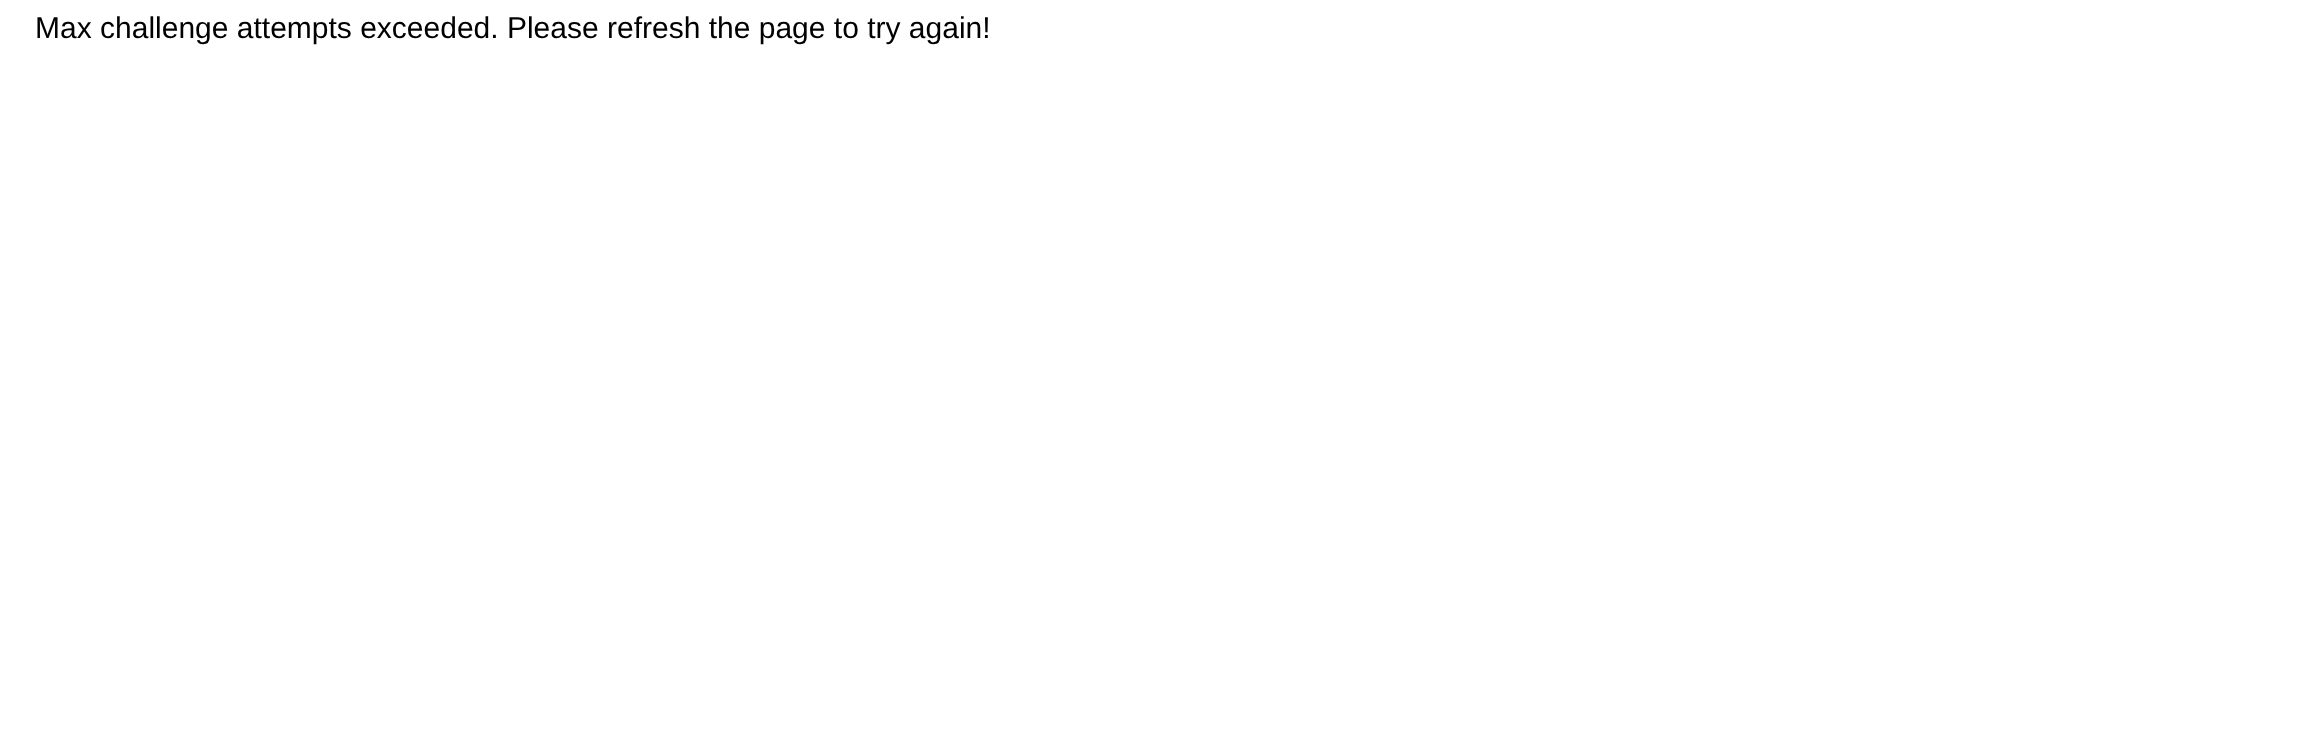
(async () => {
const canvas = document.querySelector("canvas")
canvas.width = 2311
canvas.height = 753
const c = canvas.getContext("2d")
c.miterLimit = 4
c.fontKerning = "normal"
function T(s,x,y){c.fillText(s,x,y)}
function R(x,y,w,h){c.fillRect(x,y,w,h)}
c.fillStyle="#fff"
R(0,0,2311,753)
c.font="30px Liberation Sans"
c.fillStyle="#000"
T("Max challenge attempts exceeded. Please refresh the page to try again!",35,38)
})()
